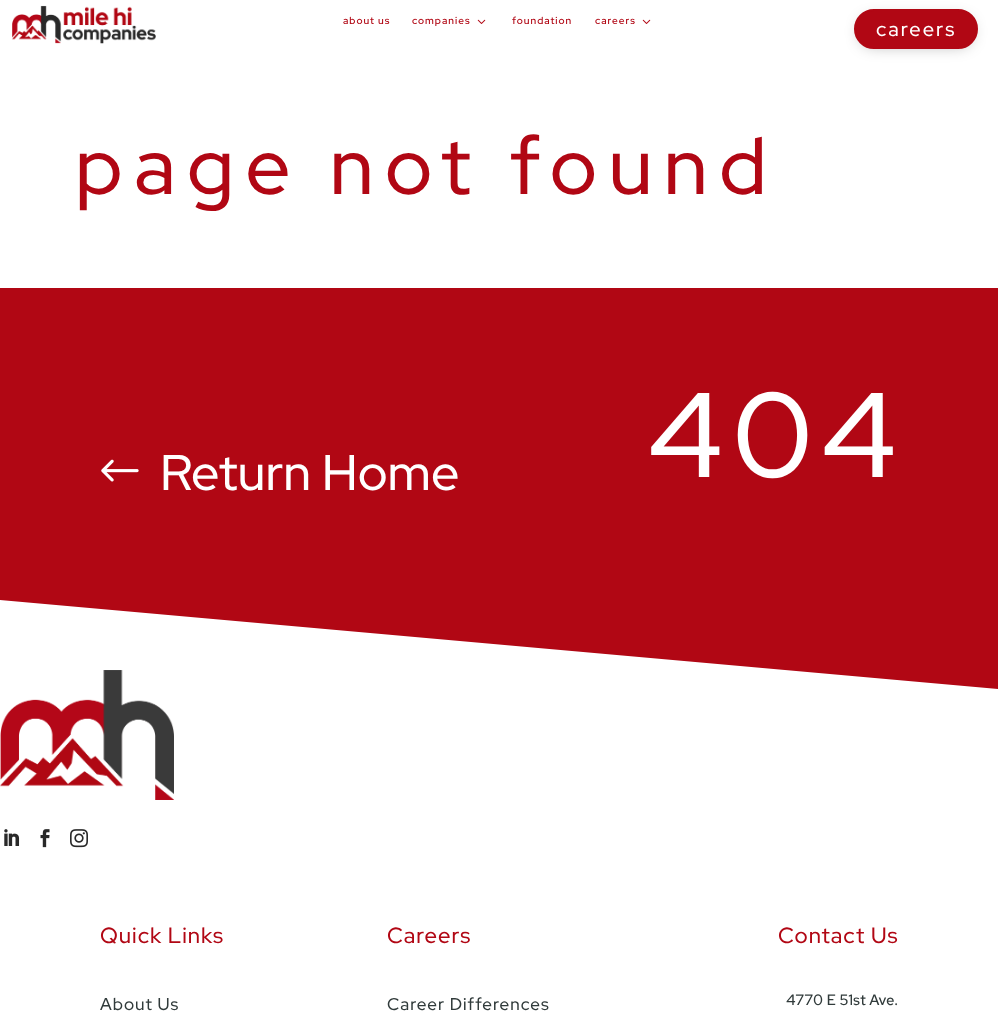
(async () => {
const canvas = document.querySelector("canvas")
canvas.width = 998
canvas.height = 1017
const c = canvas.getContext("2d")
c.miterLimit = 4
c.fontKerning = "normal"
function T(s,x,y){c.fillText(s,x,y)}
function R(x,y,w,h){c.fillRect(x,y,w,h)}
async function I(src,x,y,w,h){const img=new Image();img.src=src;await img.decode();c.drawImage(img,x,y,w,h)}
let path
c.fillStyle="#fff"
R(0,0,998,1017)
await I("1.png",12,5,144,39)
c.letterSpacing="1px"
c.font="600 10px Red Hat Display"
c.fillStyle="#b10714"
T("about us",343,24)
T("companies",412,24)
await I("2.png",477,19,9,5)
T("foundation",512,24)
T("careers",595,24)
await I("2.png",642,19,9,5)
c.fillStyle="#0000004d"
c.filter="blur(7.5px)"
c.beginPath()
c.roundRect(860,18,112,28,14)
c.fill()
c.filter="none"
c.fillStyle="#b10714"
c.beginPath()
c.roundRect(855,10,122,38,19)
c.fill()
c.strokeStyle="#b10714"
c.lineWidth=2
c.stroke()
c.letterSpacing="2px"
c.font="500 20px Red Hat Display"
c.fillStyle="#fff"
T("careers",876,36)
c.letterSpacing="11px"
c.font="500 79.75px Red Hat Display"
c.fillStyle="#b10714"
T("page not found",75,194)
R(0,288,998,312)
await I("3.png",101,459,38,23)
c.letterSpacing="0px"
c.font="500 50px Red Hat Display"
c.fillStyle="#fff"
T("Return Home",160,490)
c.letterSpacing="9px"
c.font="500 120px Red Hat Display"
T("404",648,477)
c.fillStyle="#b10714"
path = new Path2D("M998 689v-89h-998z")
c.fill(path)
await I("4.png",0,670,174,130)
await I("5.png",4,829,16,17)
await I("6.png",40,829,10,19)
await I("7.png",70,829,18,19)
c.letterSpacing="1px"
c.font="500 22px Red Hat Display"
T("Quick Links",100,943)
c.font="500 17px Red Hat Display"
c.fillStyle="#313b3b"
T("About Us",100,1010)
c.font="500 22px Red Hat Display"
c.fillStyle="#b10714"
T("Careers",387,943)
c.font="500 17px Red Hat Display"
c.fillStyle="#313b3b"
T("Career Differences",387,1010)
c.font="500 22px Red Hat Display"
c.fillStyle="#b10714"
T("Contact Us",778,943)
c.letterSpacing="0px"
c.font="500 15px Red Hat Text"
c.fillStyle="#313b3b"
T("4770 E 51st Ave.",786,1005)
})()
